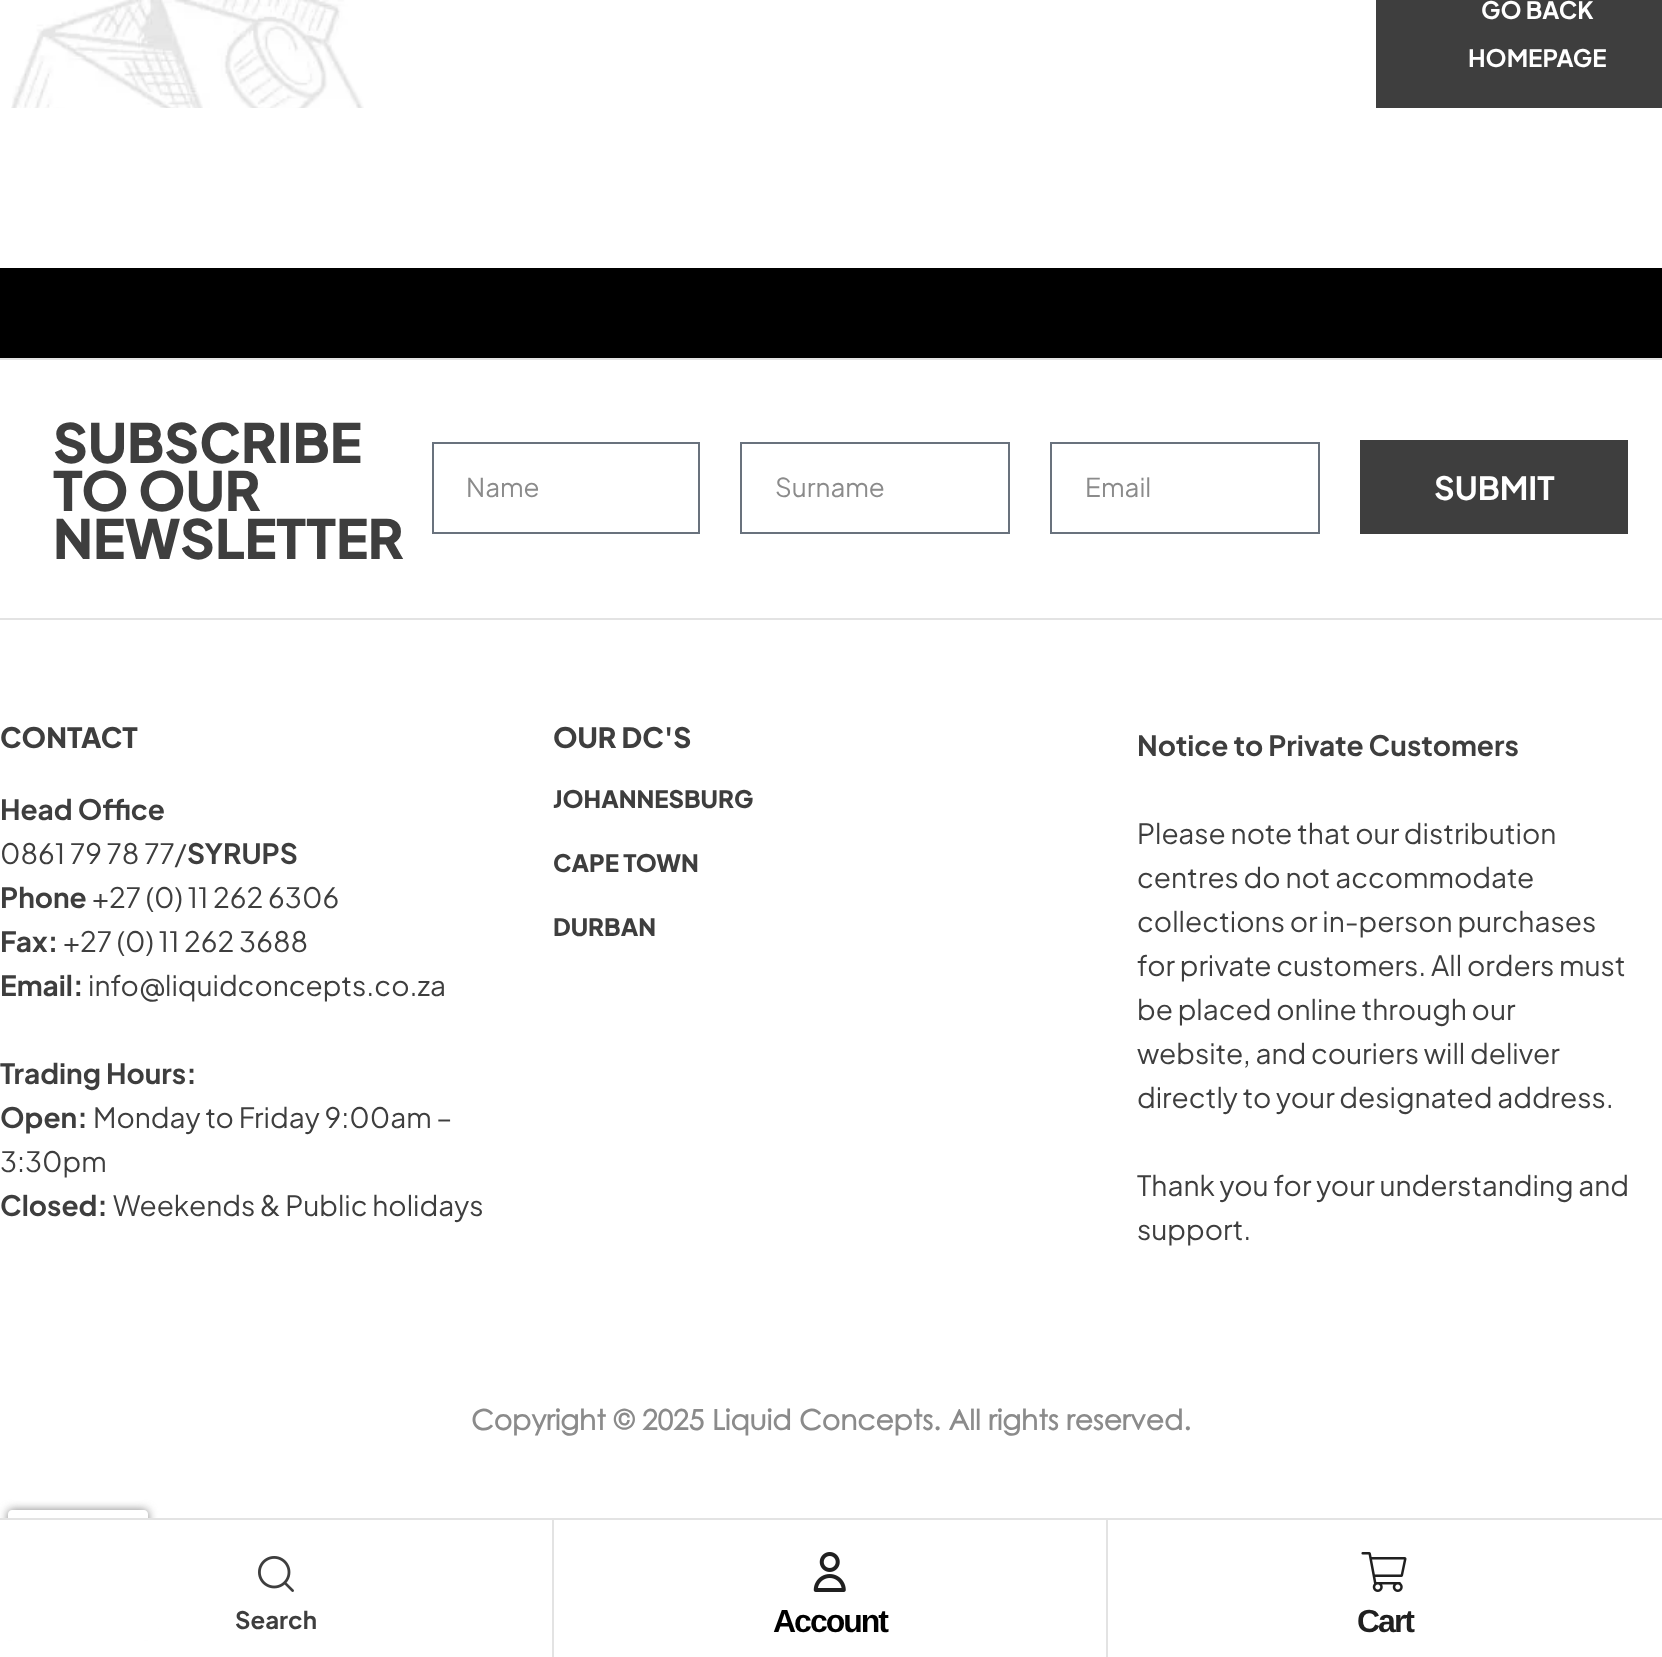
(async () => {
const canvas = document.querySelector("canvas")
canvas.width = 1662
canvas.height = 1657
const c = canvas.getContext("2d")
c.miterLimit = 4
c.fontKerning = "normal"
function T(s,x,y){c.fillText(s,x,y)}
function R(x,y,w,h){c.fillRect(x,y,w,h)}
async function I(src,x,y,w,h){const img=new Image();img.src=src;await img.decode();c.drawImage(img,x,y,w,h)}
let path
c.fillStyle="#fff"
R(0,0,1662,1657)
await I("1.png",11,0,353,108)
c.fillStyle="#3e3e3e"
R(1376,0,286,108)
c.font="bold 24px Plus Jakarta Sans"
c.fillStyle="#fff"
T("GO BACK",1481,19)
T("HOMEPAGE",1468,67)
c.fillStyle="#000"
R(0,268,1662,90)
c.fillStyle="#e3e3e3"
R(0,358,1662,2)
R(0,618,1662,2)
c.font="800 54px Plus Jakarta Sans"
c.fillStyle="#3e3e3e"
T("SUBSCRIBE",53,463)
T("TO OUR",53,511)
T("NEWSLETTER",53,559)
c.strokeStyle="#69727d"
c.lineWidth=2
c.strokeRect(433,443,266,90)
c.font="26px Plus Jakarta Sans"
c.fillStyle="#8b8b8b"
T("Name",466,497)
c.strokeRect(741,443,268,90)
T("Surname",775,497)
c.strokeRect(1051,443,268,90)
T("Email",1085,497)
c.fillStyle="#3e3e3e"
R(1360,440,268,94)
c.font="bold 32px Plus Jakarta Sans"
c.fillStyle="#fff"
T("SUBMIT",1434,500)
c.save()
path = new Path2D("M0 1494h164v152h-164zm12 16h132c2 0 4 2 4 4v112c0 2-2 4-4 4h-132c-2 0-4-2-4-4v-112c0-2 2-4 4-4z")
c.clip(path,"evenodd")
c.fillStyle="#808080"
c.filter="blur(5px)"
c.beginPath()
c.roundRect(8,1510,140,120,4)
c.fill()
c.filter="none"
c.restore()
c.font="800 28px Plus Jakarta Sans"
c.fillStyle="#3e3e3e"
T("CONTACT",0,748)
c.font="bold 28px Plus Jakarta Sans"
T("Head Office",0,820)
c.font="28px Plus Jakarta Sans"
T("0861 79 78 77/",0,864)
c.font="bold 28px Plus Jakarta Sans"
T("SYRUPS",187,864)
T("Phone",0,908)
c.font="28px Plus Jakarta Sans"
T("+27 (0) 11 262 6306",92,908)
c.font="bold 28px Plus Jakarta Sans"
T("Fax:",0,952)
c.font="28px Plus Jakarta Sans"
T("+27 (0) 11 262 3688",63,952)
c.font="bold 28px Plus Jakarta Sans"
T("Email:",0,996)
c.font="28px Plus Jakarta Sans"
T("info@liquidconcepts.co.za",88,996)
c.font="bold 28px Plus Jakarta Sans"
T("Trading Hours:",0,1084)
T("Open:",0,1128)
c.font="28px Plus Jakarta Sans"
T("Monday to Friday 9:00am –",93,1128)
T("3:30pm",0,1172)
c.font="bold 28px Plus Jakarta Sans"
T("Closed:",0,1216)
c.font="28px Plus Jakarta Sans"
T("Weekends & Public holidays",113,1216)
c.font="800 28px Plus Jakarta Sans"
T("OUR DC'S",553,748)
c.font="800 24px Plus Jakarta Sans"
T("JOHANNESBURG",553,808)
T("CAPE TOWN",553,872)
T("DURBAN",553,936)
c.font="bold 28px Plus Jakarta Sans"
T("Notice to Private Customers",1137,756)
c.font="28px Plus Jakarta Sans"
T("Please note that our distribution",1137,844)
T("centres do not accommodate",1137,888)
T("collections or in-person purchases",1137,932)
T("for private customers. All orders must",1137,976)
T("be placed online through our",1137,1020)
T("website, and couriers will deliver",1137,1064)
T("directly to your designated address.",1137,1108)
T("Thank you for your understanding and",1137,1196)
T("support.",1137,1240)
c.font="bold 28px Century Gothic"
c.fillStyle="#8b8b8b"
T("Copyright © 2025 Liquid Concepts. All rights reserved.",471,1430)
c.fillStyle="#fff"
R(0,1520,158,120)
c.fillStyle="#e3e3e3"
R(0,1518,1662,2)
R(552,1520,2,137)
await I("2.png",258,1556,36,36)
c.font="bold 24px Plus Jakarta Sans"
c.fillStyle="#3e3e3e"
T("Search",235,1629)
c.fillStyle="#e3e3e3"
R(1106,1520,2,137)
await I("3.png",813,1552,33,40)
c.letterSpacing="-2px"
c.font="bold 32px Liberation Sans"
c.fillStyle="#000"
T("Account",773,1632)
await I("4.png",1361,1552,46,40)
c.fillStyle="#202020"
T("Cart",1357,1632)
})()
